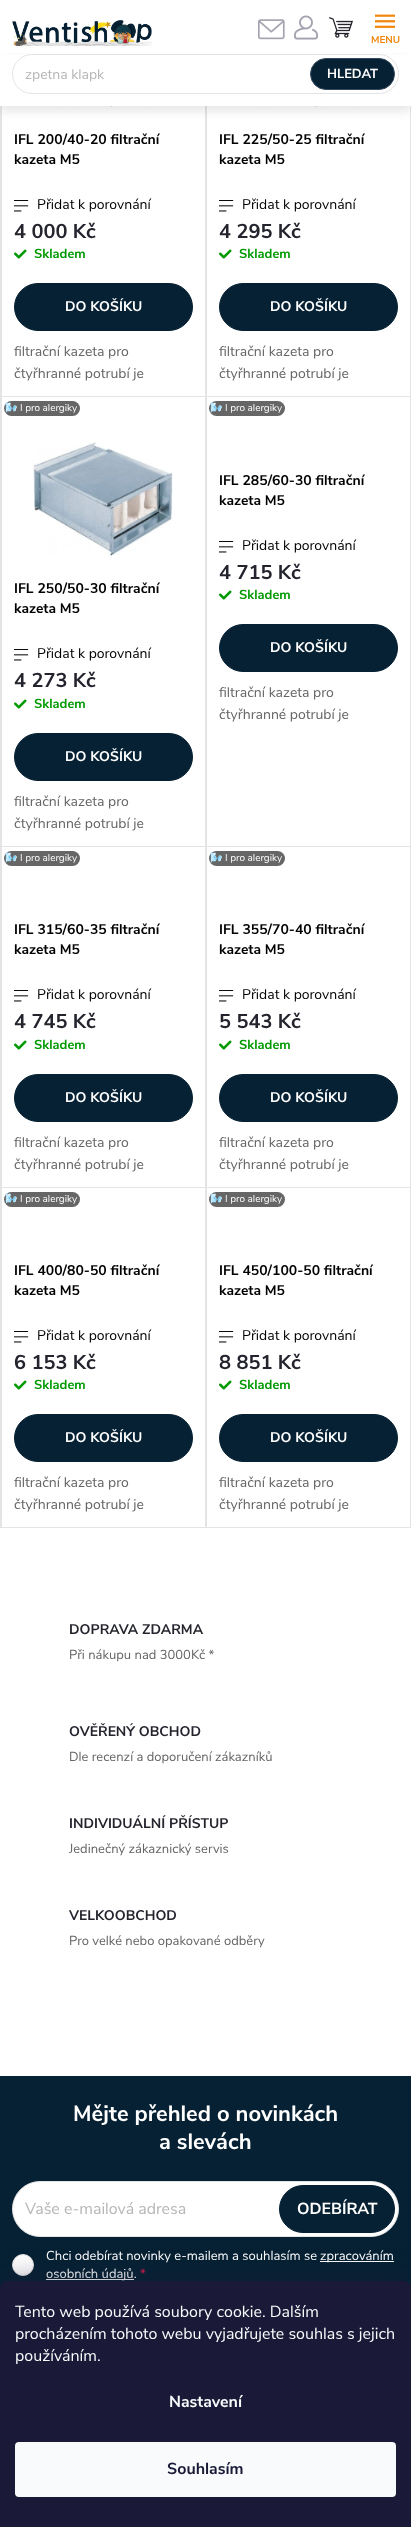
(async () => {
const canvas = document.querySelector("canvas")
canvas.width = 411
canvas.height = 2527
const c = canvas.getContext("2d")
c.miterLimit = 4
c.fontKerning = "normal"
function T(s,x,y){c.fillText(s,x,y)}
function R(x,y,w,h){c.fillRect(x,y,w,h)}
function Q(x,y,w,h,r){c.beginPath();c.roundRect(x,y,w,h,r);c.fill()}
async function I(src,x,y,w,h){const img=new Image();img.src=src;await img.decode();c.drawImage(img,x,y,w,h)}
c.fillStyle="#fff"
R(0,0,411,2527)
await I("1.png",258,19,27,21)
await I("2.png",294,15,24,25)
await I("3.png",375,14,20,14)
c.font="bold 10px Nunito Sans"
c.fillStyle="#f1870f"
T("MENU",371,43)
c.fillStyle="#e4e4e4"
R(0,106,1,1422)
R(205,106,1,1422)
R(1,396,205,1)
R(1,106,1,291)
await I("6.png",33,106,140,1)
R(410,106,1,1422)
R(206,396,205,1)
R(206,106,1,291)
await I("6.png",238,106,140,1)
c.fillStyle="#24242e1a"
c.filter="blur(4px)"
c.beginPath()
c.rect(0,60,411,52)
c.fill()
c.filter="none"
c.fillStyle="#fff"
R(0,55,411,51)
await I("4.png",12,20,140,26)
await I("5.png",329,17,24,21)
c.beginPath()
c.roundRect(12.5,54.5,386,39,19.5)
c.strokeStyle="#e4e4e4"
c.stroke()
c.font="14px Nunito Sans"
c.fillStyle="#b6b6b6"
T("zpetna klapk",25,79)
c.fillStyle="#062133"
c.beginPath()
c.roundRect(310.5,58.5,84,31,15.5)
c.fill()
c.strokeStyle="#35495f"
c.stroke()
c.font="bold 13px Nunito Sans"
c.fillStyle="#fff"
T("HLEDAT",327,78)
c.font="bold 14px Nunito Sans"
c.fillStyle="#000"
T("IFL 200/40-20 filtrační",14,144)
T("kazeta M5",14,164)
await I("7.png",14,200,15,12)
c.font="14px Nunito Sans"
T("Přidat k porovnání",37,209)
c.font="bold 20px Nunito Sans"
c.fillStyle="#24242e"
T("4 000 Kč",14,238)
await I("8.png",14,249,13,10)
c.font="bold 13px Nunito Sans"
c.fillStyle="#009901"
T("Skladem",34,258)
c.fillStyle="#062133"
c.beginPath()
c.roundRect(14.5,283.5,178,47,23.5)
c.fill()
c.strokeStyle="#062133"
c.stroke()
c.font="bold 14px Nunito Sans"
c.fillStyle="#fff"
T("DO KOŠÍKU",65,311)
c.font="14px Nunito Sans"
c.fillStyle="#656565"
T("filtrační kazeta pro",14,356)
T("čtyřhranné potrubí je",14,378)
c.font="bold 14px Nunito Sans"
c.fillStyle="#000"
T("IFL 225/50-25 filtrační",219,144)
T("kazeta M5",219,164)
await I("7.png",219,200,15,12)
c.font="14px Nunito Sans"
T("Přidat k porovnání",242,209)
c.font="bold 20px Nunito Sans"
c.fillStyle="#24242e"
T("4 295 Kč",219,238)
await I("8.png",219,249,13,10)
c.font="bold 13px Nunito Sans"
c.fillStyle="#009901"
T("Skladem",239,258)
c.fillStyle="#062133"
c.beginPath()
c.roundRect(219.5,283.5,178,47,23.5)
c.fill()
c.stroke()
c.font="bold 14px Nunito Sans"
c.fillStyle="#fff"
T("DO KOŠÍKU",270,311)
c.font="14px Nunito Sans"
c.fillStyle="#656565"
T("filtrační kazeta pro",219,356)
T("čtyřhranné potrubí je",219,378)
c.fillStyle="#e4e4e4"
R(1,846,410,1)
R(1,397,1,450)
c.fillStyle="#666"
Q(4,401,76,15,7.5)
c.font="10px Noto Color Emoji"
c.fillStyle="#fff"
T("🌬️",5,411)
c.font="10px Nunito Sans"
T("I pro alergiky",20,411)
await I("9.png",33,442,140,114)
c.font="bold 14px Nunito Sans"
c.fillStyle="#000"
T("IFL 250/50-30 filtrační",14,593)
T("kazeta M5",14,613)
await I("7.png",14,649,15,12)
c.font="14px Nunito Sans"
T("Přidat k porovnání",37,658)
c.font="bold 20px Nunito Sans"
c.fillStyle="#24242e"
T("4 273 Kč",14,687)
await I("8.png",14,699,13,10)
c.font="bold 13px Nunito Sans"
c.fillStyle="#009901"
T("Skladem",34,708)
c.fillStyle="#062133"
c.beginPath()
c.roundRect(14.5,733.5,178,47,23.5)
c.fill()
c.stroke()
c.font="bold 14px Nunito Sans"
c.fillStyle="#fff"
T("DO KOŠÍKU",65,761)
c.font="14px Nunito Sans"
c.fillStyle="#656565"
T("filtrační kazeta pro",14,806)
T("čtyřhranné potrubí je",14,828)
c.fillStyle="#e4e4e4"
R(206,397,1,450)
c.fillStyle="#666"
Q(209,401,76,15,7.5)
c.font="10px Noto Color Emoji"
c.fillStyle="#fff"
T("🌬️",210,411)
c.font="10px Nunito Sans"
T("I pro alergiky",225,411)
c.font="bold 14px Nunito Sans"
c.fillStyle="#000"
T("IFL 285/60-30 filtrační",219,485)
T("kazeta M5",219,505)
await I("7.png",219,541,15,12)
c.font="14px Nunito Sans"
T("Přidat k porovnání",242,550)
c.font="bold 20px Nunito Sans"
c.fillStyle="#24242e"
T("4 715 Kč",219,579)
await I("8.png",219,590,13,10)
c.font="bold 13px Nunito Sans"
c.fillStyle="#009901"
T("Skladem",239,599)
c.fillStyle="#062133"
c.beginPath()
c.roundRect(219.5,624.5,178,47,23.5)
c.fill()
c.stroke()
c.font="bold 14px Nunito Sans"
c.fillStyle="#fff"
T("DO KOŠÍKU",270,652)
c.font="14px Nunito Sans"
c.fillStyle="#656565"
T("filtrační kazeta pro",219,697)
T("čtyřhranné potrubí je",219,719)
c.fillStyle="#e4e4e4"
R(1,1187,410,1)
R(1,847,1,341)
c.fillStyle="#666"
Q(4,851,76,15,7.5)
c.font="10px Noto Color Emoji"
c.fillStyle="#fff"
T("🌬️",5,861)
c.font="10px Nunito Sans"
T("I pro alergiky",20,861)
c.font="bold 14px Nunito Sans"
c.fillStyle="#000"
T("IFL 315/60-35 filtrační",14,934)
T("kazeta M5",14,954)
await I("7.png",14,990,15,12)
c.font="14px Nunito Sans"
T("Přidat k porovnání",37,999)
c.font="bold 20px Nunito Sans"
c.fillStyle="#24242e"
T("4 745 Kč",14,1028)
await I("8.png",14,1040,13,10)
c.font="bold 13px Nunito Sans"
c.fillStyle="#009901"
T("Skladem",34,1049)
c.fillStyle="#062133"
c.beginPath()
c.roundRect(14.5,1074.5,178,47,23.5)
c.fill()
c.stroke()
c.font="bold 14px Nunito Sans"
c.fillStyle="#fff"
T("DO KOŠÍKU",65,1102)
c.font="14px Nunito Sans"
c.fillStyle="#656565"
T("filtrační kazeta pro",14,1147)
T("čtyřhranné potrubí je",14,1169)
c.fillStyle="#e4e4e4"
R(206,847,1,341)
c.fillStyle="#666"
Q(209,851,76,15,7.5)
c.font="10px Noto Color Emoji"
c.fillStyle="#fff"
T("🌬️",210,861)
c.font="10px Nunito Sans"
T("I pro alergiky",225,861)
c.font="bold 14px Nunito Sans"
c.fillStyle="#000"
T("IFL 355/70-40 filtrační",219,934)
T("kazeta M5",219,954)
await I("7.png",219,990,15,12)
c.font="14px Nunito Sans"
T("Přidat k porovnání",242,999)
c.font="bold 20px Nunito Sans"
c.fillStyle="#24242e"
T("5 543 Kč",219,1028)
await I("8.png",219,1040,13,10)
c.font="bold 13px Nunito Sans"
c.fillStyle="#009901"
T("Skladem",239,1049)
c.fillStyle="#062133"
c.beginPath()
c.roundRect(219.5,1074.5,178,47,23.5)
c.fill()
c.stroke()
c.font="bold 14px Nunito Sans"
c.fillStyle="#fff"
T("DO KOŠÍKU",270,1102)
c.font="14px Nunito Sans"
c.fillStyle="#656565"
T("filtrační kazeta pro",219,1147)
T("čtyřhranné potrubí je",219,1169)
c.fillStyle="#e4e4e4"
R(1,1527,410,1)
R(1,1188,1,340)
c.fillStyle="#666"
Q(4,1192,76,15,7.5)
c.font="10px Noto Color Emoji"
c.fillStyle="#fff"
T("🌬️",5,1202)
c.font="10px Nunito Sans"
T("I pro alergiky",20,1202)
c.font="bold 14px Nunito Sans"
c.fillStyle="#000"
T("IFL 400/80-50 filtrační",14,1275)
T("kazeta M5",14,1295)
await I("7.png",14,1331,15,12)
c.font="14px Nunito Sans"
T("Přidat k porovnání",37,1340)
c.font="bold 20px Nunito Sans"
c.fillStyle="#24242e"
T("6 153 Kč",14,1369)
await I("8.png",14,1380,13,10)
c.font="bold 13px Nunito Sans"
c.fillStyle="#009901"
T("Skladem",34,1389)
c.fillStyle="#062133"
c.beginPath()
c.roundRect(14.5,1414.5,178,47,23.5)
c.fill()
c.stroke()
c.font="bold 14px Nunito Sans"
c.fillStyle="#fff"
T("DO KOŠÍKU",65,1442)
c.font="14px Nunito Sans"
c.fillStyle="#656565"
T("filtrační kazeta pro",14,1487)
T("čtyřhranné potrubí je",14,1509)
c.fillStyle="#e4e4e4"
R(206,1188,1,340)
c.fillStyle="#666"
Q(209,1192,76,15,7.5)
c.font="10px Noto Color Emoji"
c.fillStyle="#fff"
T("🌬️",210,1202)
c.font="10px Nunito Sans"
T("I pro alergiky",225,1202)
c.font="bold 14px Nunito Sans"
c.fillStyle="#000"
T("IFL 450/100-50 filtrační",219,1275)
T("kazeta M5",219,1295)
await I("7.png",219,1331,15,12)
c.font="14px Nunito Sans"
T("Přidat k porovnání",242,1340)
c.font="bold 20px Nunito Sans"
c.fillStyle="#24242e"
T("8 851 Kč",219,1369)
await I("8.png",219,1380,13,10)
c.font="bold 13px Nunito Sans"
c.fillStyle="#009901"
T("Skladem",239,1389)
c.fillStyle="#062133"
c.beginPath()
c.roundRect(219.5,1414.5,178,47,23.5)
c.fill()
c.stroke()
c.font="bold 14px Nunito Sans"
c.fillStyle="#fff"
T("DO KOŠÍKU",270,1442)
c.font="14px Nunito Sans"
c.fillStyle="#656565"
T("filtrační kazeta pro",219,1487)
T("čtyřhranné potrubí je",219,1509)
c.font="bold 14px Nunito Sans"
c.fillStyle="#24242e"
T("DOPRAVA ZDARMA",69,1634)
c.font="13px Nunito Sans"
c.fillStyle="#656565"
T("Při nákupu nad 3000Kč *",69,1659)
c.font="bold 14px Nunito Sans"
c.fillStyle="#24242e"
T("OVĚŘENÝ OBCHOD",69,1736)
c.font="13px Nunito Sans"
c.fillStyle="#656565"
T("Dle recenzí a doporučení zákazníků",69,1761)
c.font="bold 14px Nunito Sans"
c.fillStyle="#24242e"
T("INDIVIDUÁLNÍ PŘÍSTUP",69,1828)
c.font="13px Nunito Sans"
c.fillStyle="#656565"
T("Jedinečný zákaznický servis",69,1853)
c.font="bold 14px Nunito Sans"
c.fillStyle="#24242e"
T("VELKOOBCHOD",69,1920)
c.font="13px Nunito Sans"
c.fillStyle="#656565"
T("Pro velké nebo opakované odběry",69,1945)
c.fillStyle="#062133"
R(0,2076,411,213)
c.font="bold 22px Nunito Sans"
c.fillStyle="#fff"
T("Mějte přehled o novinkách",73,2121)
T("a slevách",159,2149)
c.beginPath()
c.roundRect(12.5,2181.5,386,55,27.5)
c.fill()
c.strokeStyle="#e4e4e4"
c.stroke()
c.font="16px Nunito Sans"
c.fillStyle="#b6b6b6"
T("Vaše e-mailová adresa",25,2214)
c.fillStyle="#062133"
c.beginPath()
c.roundRect(279.5,2185.5,115,47,23.5)
c.fill()
c.strokeStyle="#062133"
c.stroke()
c.font="bold 16px Nunito Sans"
c.fillStyle="#fff"
T("ODEBÍRAT",297,2214)
c.beginPath()
c.arc(23,2265,10.5,0,7)
c.fill()
c.strokeStyle="#e4e4e4"
c.stroke()
c.font="13px Nunito Sans"
T("Chci odebírat novinky e-mailem a souhlasím se",46,2260)
R(320,2261,74,1)
T("zpracováním",320,2260)
R(46,2279,88,1)
T("osobních údajů.",46,2278)
c.fillStyle="#e31e53"
T("*",140,2278)
c.fillStyle="#1b193980"
c.filter="blur(15px)"
c.beginPath()
c.roundRect(0,2281,411,246,8)
c.fill()
c.filter="none"
c.fillStyle="#1a1937"
c.beginPath()
c.roundRect(0,2281,411,246,[8,8,0,0])
c.fill()
c.font="16px Nunito Sans"
c.fillStyle="#f8fafb"
T("Tento web používá soubory cookie. Dalším",15,2317)
T("procházením tohoto webu vyjadřujete souhlas s jejich",15,2339)
T("používáním.",15,2361)
c.font="bold 16px Nunito Sans"
T("Nastavení",169,2407)
Q(15,2442,381,55,4)
c.fillStyle="#1a1937"
T("Souhlasím",167,2474)
})()
